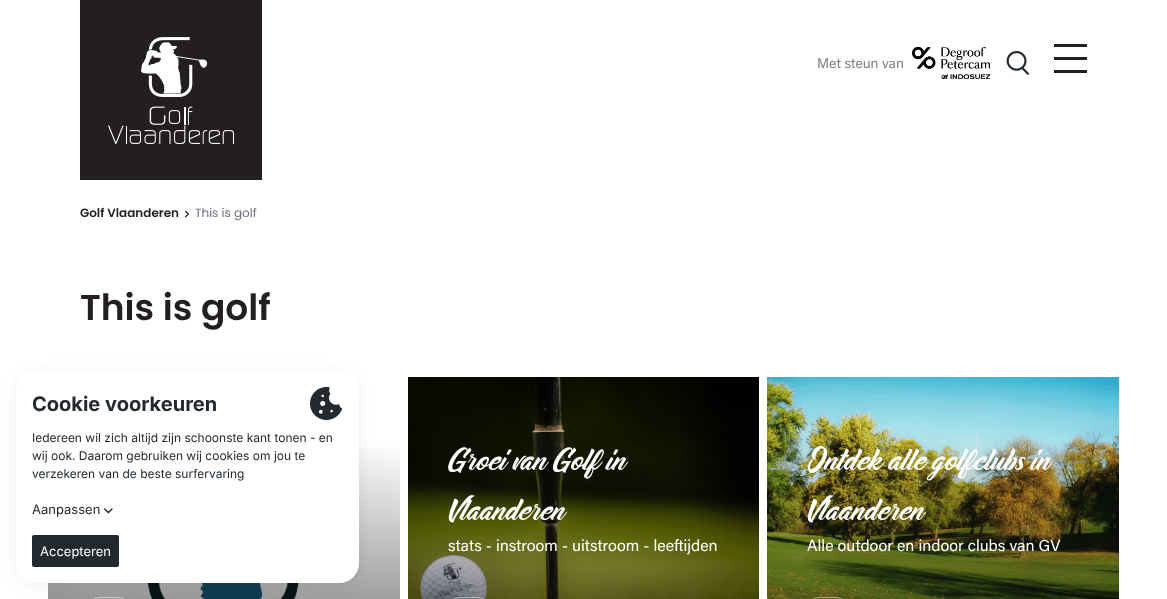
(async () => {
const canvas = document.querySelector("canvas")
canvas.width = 1167
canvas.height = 599
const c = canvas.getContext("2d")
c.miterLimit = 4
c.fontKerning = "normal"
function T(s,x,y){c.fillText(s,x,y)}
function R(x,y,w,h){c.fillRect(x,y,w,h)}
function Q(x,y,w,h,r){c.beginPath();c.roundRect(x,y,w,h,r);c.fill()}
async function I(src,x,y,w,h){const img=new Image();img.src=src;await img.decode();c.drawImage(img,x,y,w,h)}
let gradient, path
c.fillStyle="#fff"
R(0,0,1167,599)
c.fillStyle="#231f20"
R(80,0,182,180)
await I("1.png",108,37,126,107)
c.font="14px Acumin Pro"
c.fillStyle="#818181"
T("Met steun van",817,68)
await I("2.png",912,47,78,32)
await I("3.png",1006,51,23,24)
c.fillStyle="#231f20"
R(1054,70,33,3)
R(1054,44,33,3)
R(1054,57,33,3)
c.font="600 12px Poppins"
T("Golf Vlaanderen",80,217)
await I("4.png",185,210,4,8)
c.font="12px Poppins"
c.fillStyle="#6b6c78"
T("This is golf",195,217)
c.font="600 36px Poppins"
c.fillStyle="#231f20"
T("This is golf",80,320)
await I("5.png",122,579,229,20)
gradient = c.createLinearGradient(232,368,216,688)
gradient.addColorStop(0,"#0f0f0f00")
gradient.addColorStop(.2,"#0f0f0f00")
gradient.addColorStop(1,"#0f0f0fa3")
c.fillStyle = gradient
R(48,447,352,152)
c.beginPath()
c.roundRect(88.5,597.5,41,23,20.5)
c.strokeStyle="#cbcbcb"
c.stroke()
await I("6.png",408,377,351,222)
await I("7.png",448,447,181,32)
await I("8.png",448,495,120,28)
c.font="16px Acumin Pro"
c.fillStyle="#fff"
T("stats - instroom - uitstroom - leeftijden",448,551)
c.beginPath()
c.roundRect(448.5,597.5,41,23,20.5)
c.strokeStyle="#ffffff80"
c.stroke()
await I("9.png",767,377,352,222)
await I("10.png",807,446,246,35)
await I("11.png",807,495,120,28)
T("Alle outdoor en indoor clubs van GV",807,551)
c.beginPath()
c.roundRect(807.5,597.5,41,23,20.5)
c.stroke()
c.fillStyle="#01013f1a"
c.filter="blur(9.5px)"
c.beginPath()
c.roundRect(20,377,335,204,16)
c.fill()
c.filter="none"
c.fillStyle="#fff"
Q(16,371,343,212,20)
c.font="bold 20px Inter"
c.fillStyle="#22292f"
T("Cookie voorkeuren",32,411)
await I("12.png",310,387,33,33)
c.font="12px Inter"
T("Iedereen wil zich altijd zijn schoonste kant tonen - en",32,442)
T("wij ook. Daarom gebruiken wij cookies om jou te",32,460)
T("verzekeren van de beste surfervaring",32,478)
c.font="13px Inter"
T("Aanpassen",32,514)
path = new Path2D("M104.5 509l4 3.5l3.5-3.5")
c.strokeStyle="#22292f"
c.lineWidth=1.4
c.lineCap="round"
c.stroke(path)
Q(32,535,87,32,2)
c.fillStyle="#fff"
T("Accepteren",40,556)
})()
